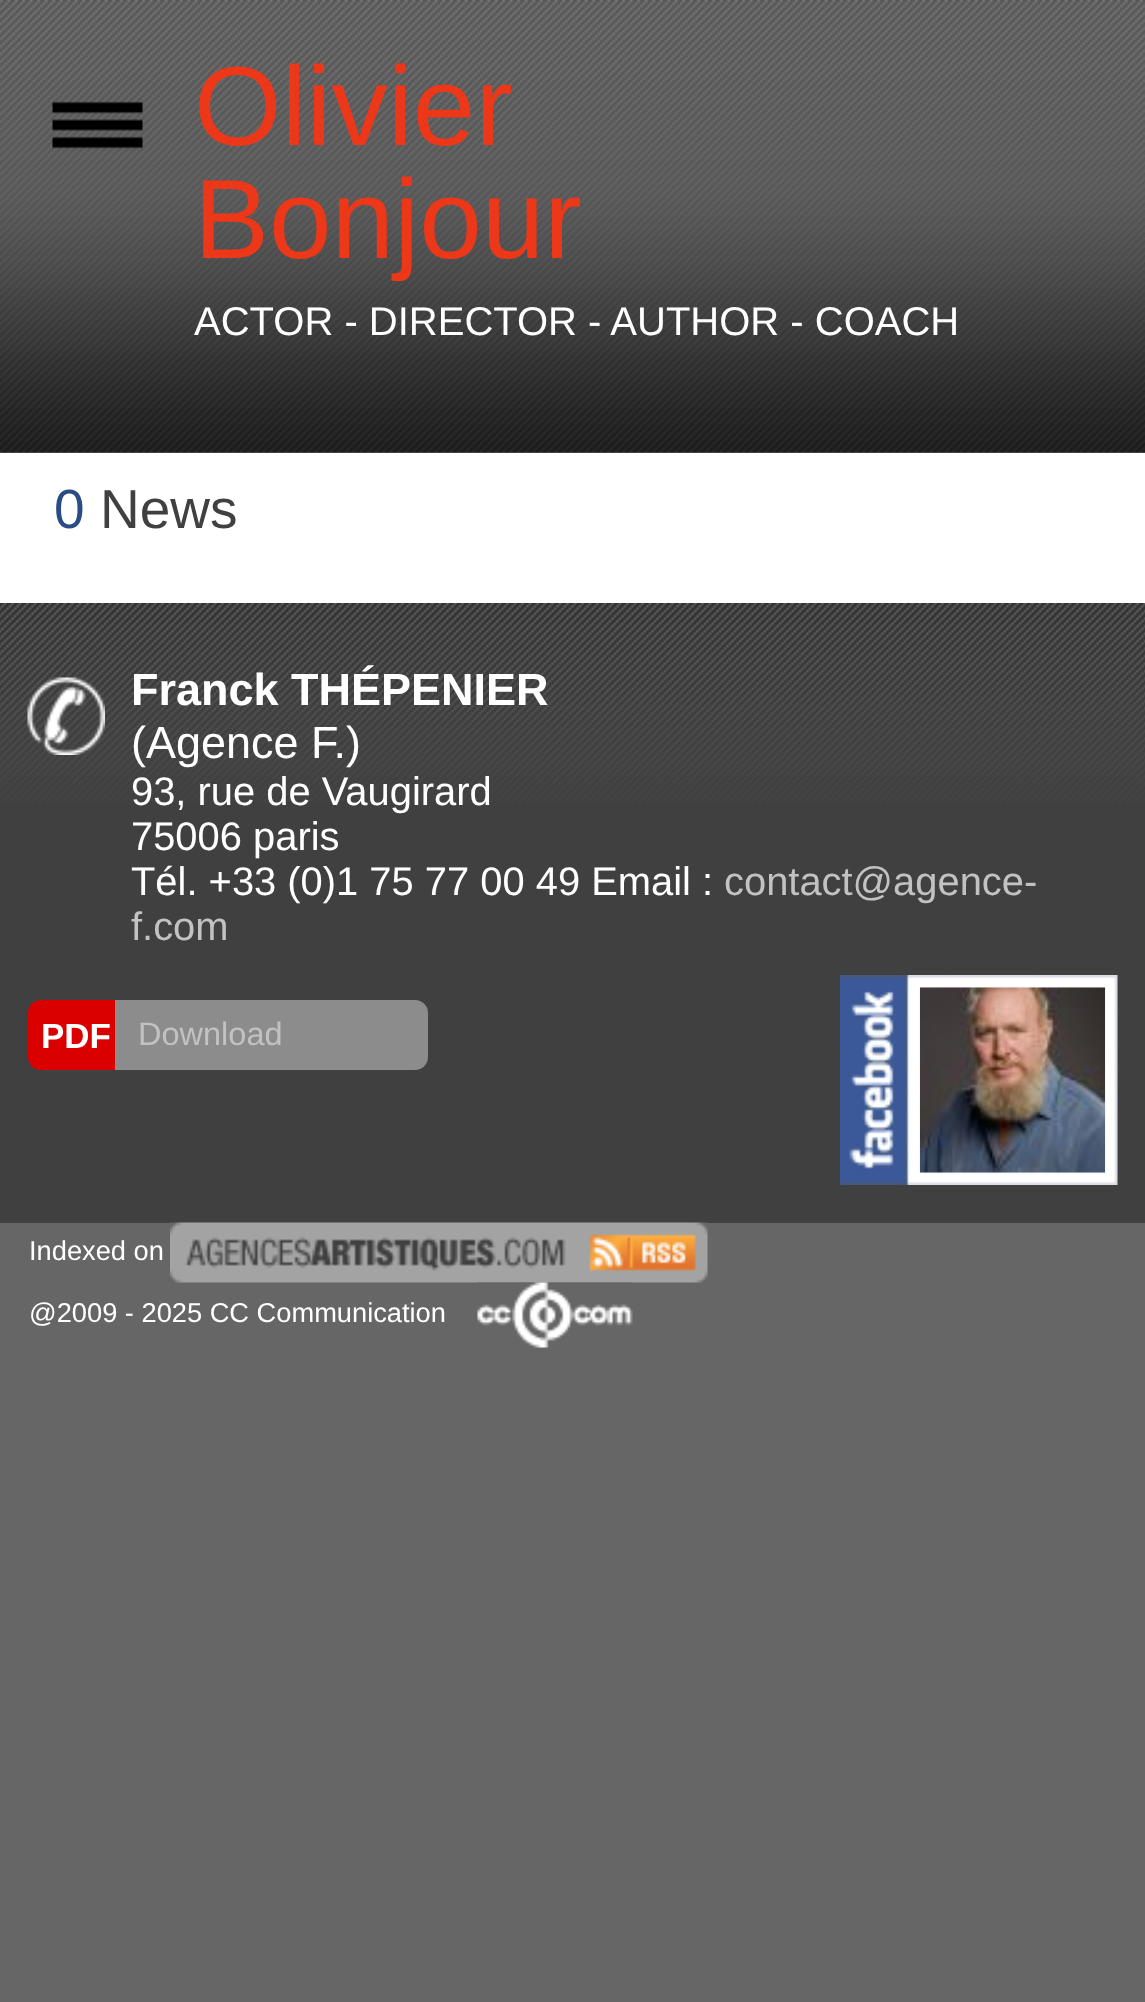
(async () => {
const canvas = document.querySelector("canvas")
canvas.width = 1145
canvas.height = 2002
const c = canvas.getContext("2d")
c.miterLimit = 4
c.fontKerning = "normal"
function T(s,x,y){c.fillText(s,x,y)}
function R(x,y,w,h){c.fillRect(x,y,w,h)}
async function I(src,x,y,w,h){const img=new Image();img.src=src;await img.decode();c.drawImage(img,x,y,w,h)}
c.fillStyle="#666"
R(0,0,1145,2002)
await I("1.png",0,0,1145,453)
await I("2.png",52,101,91,48)
c.font="112.5px Liberation Sans"
c.fillStyle="#ec3818"
T("Olivier",194,145)
T("Bonjour",194,258)
c.font="40px Liberation Sans"
c.fillStyle="#fff"
T("ACTOR - DIRECTOR - AUTHOR - COACH",194,335)
R(0,453,1145,150)
c.font="55px Liberation Sans"
c.fillStyle="#294c85"
T("0",54,528)
c.fillStyle="#404040"
T("News",100,528)
R(0,802,1145,421)
await I("3.png",0,603,1145,199)
await I("4.png",27,677,78,78)
c.font="bold 45px Liberation Sans"
c.fillStyle="#fff"
T("Franck THÉPENIER",131,705)
c.font="45px Liberation Sans"
T("(Agence F.)",131,758)
c.font="39.9px Liberation Sans"
T("93, rue de Vaugirard",131,805)
T("75006 paris",131,850)
T("Tél. +33 (0)1 75 77 00 49 Email :",131,895)
c.fillStyle="#c2c2c2"
T("contact@agence-",724,895)
T("f.com",131,940)
c.fillStyle="#da0000"
c.beginPath()
c.roundRect(28,1000,87,70,[13,0,0,13])
c.fill()
c.font="bold 35px Liberation Sans"
c.fillStyle="#fff"
T("PDF",41,1048)
c.fillStyle="#8c8c8c"
c.beginPath()
c.roundRect(115,1000,313,70,[0,13,13,0])
c.fill()
c.font="32.5px Liberation Sans"
c.fillStyle="#c2c2c2"
T("Download",138,1045)
await I("5.png",840,975,278,210)
await I("6.png",920,987,185,186)
c.font="27.25px Liberation Sans"
c.fillStyle="#fff"
T("Indexed on",29,1260)
await I("7.png",170,1222,538,61)
T("@2009 - 2025 CC Communication",29,1322)
await I("8.png",477,1282,156,66)
})()
